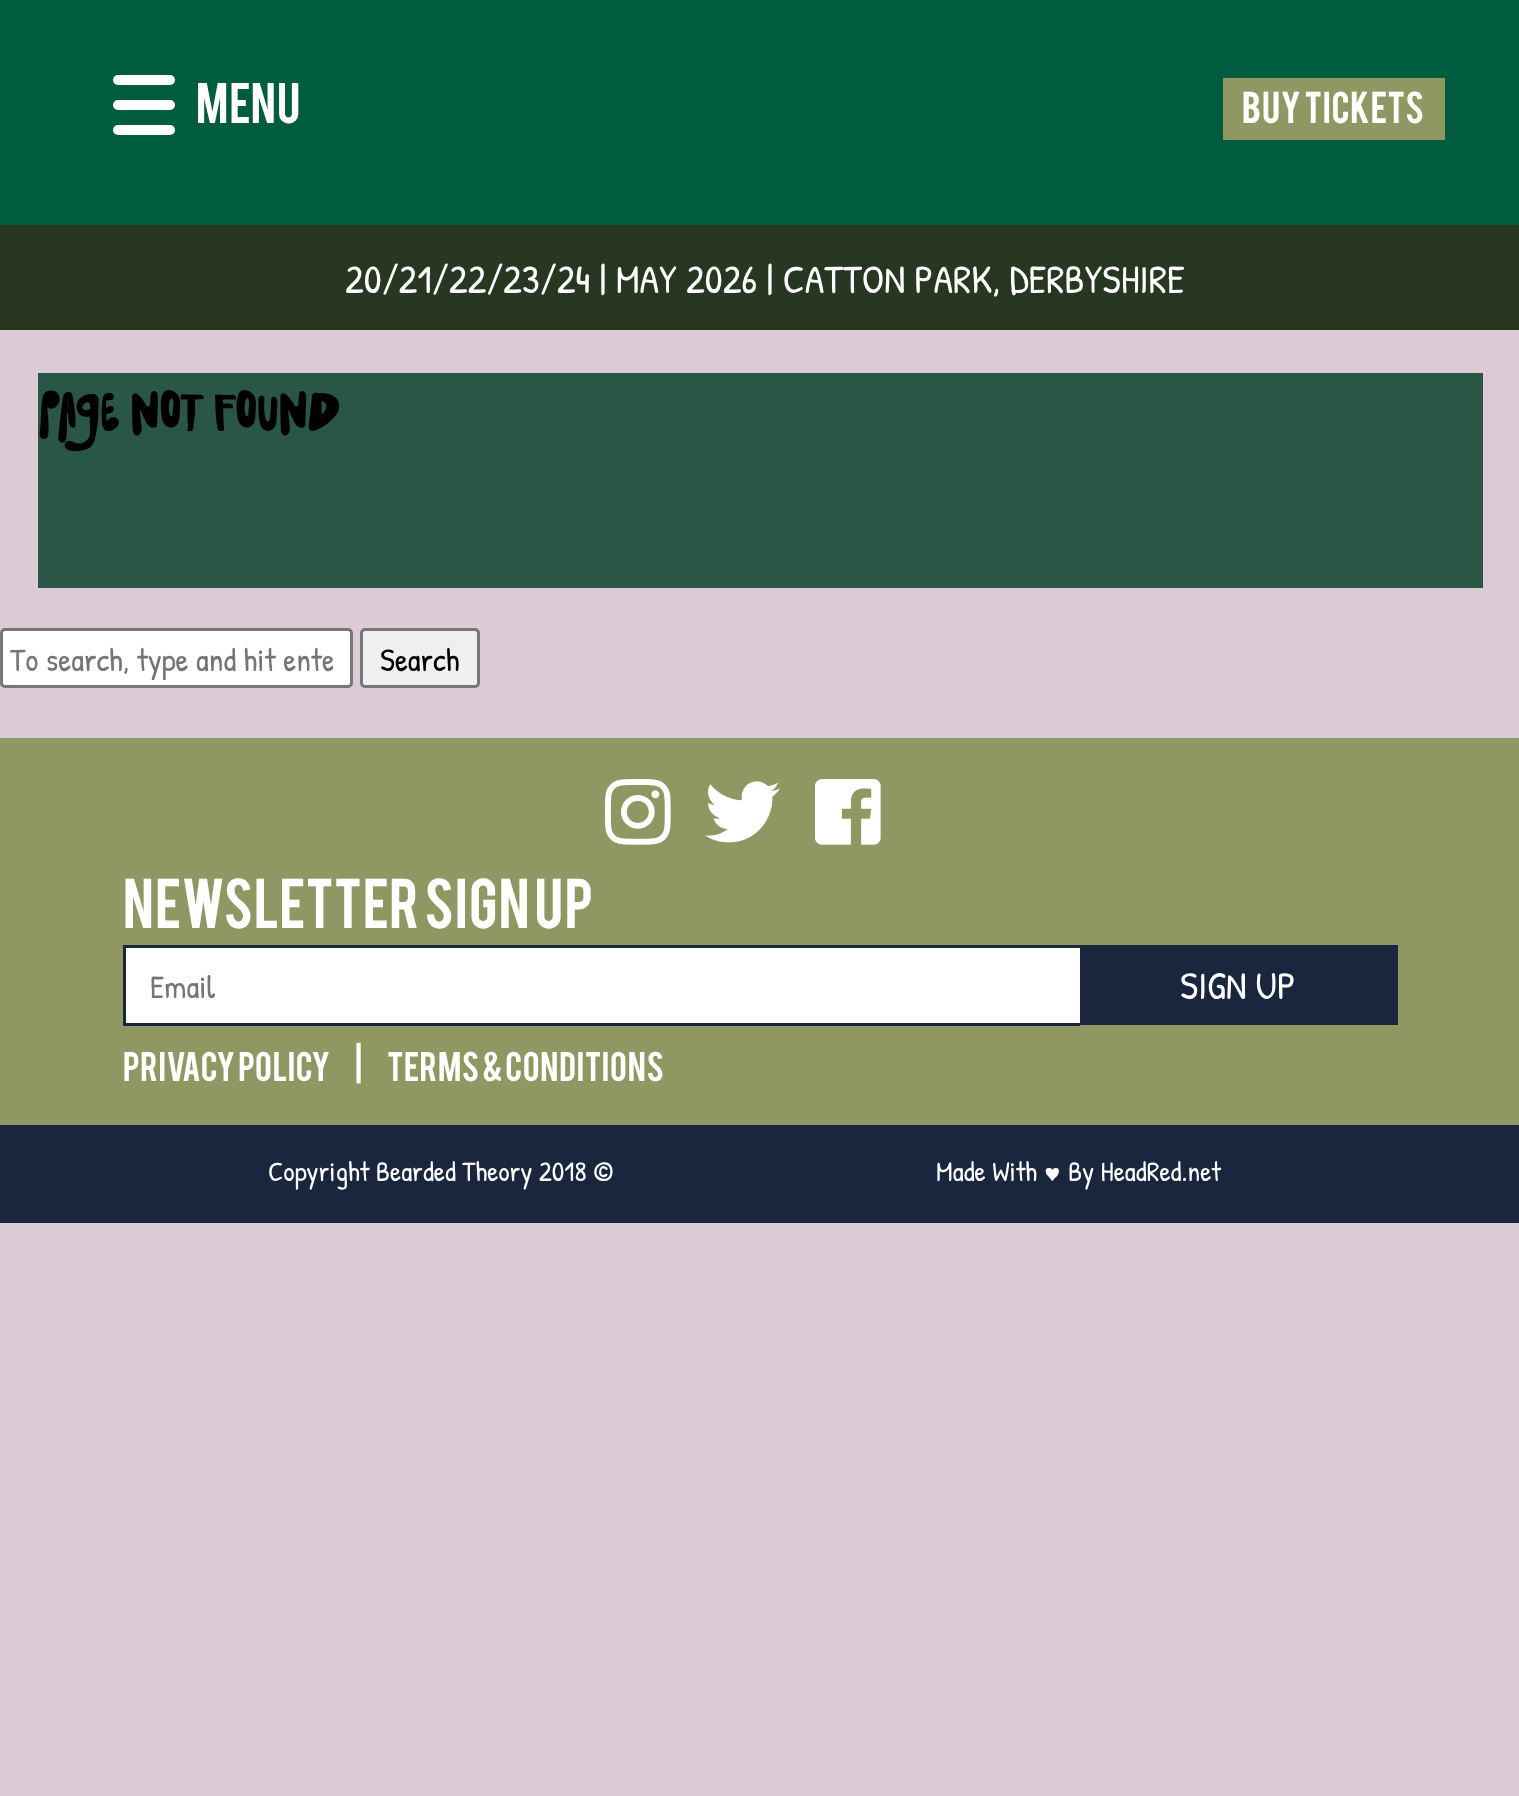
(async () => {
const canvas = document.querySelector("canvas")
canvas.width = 1519
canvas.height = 1796
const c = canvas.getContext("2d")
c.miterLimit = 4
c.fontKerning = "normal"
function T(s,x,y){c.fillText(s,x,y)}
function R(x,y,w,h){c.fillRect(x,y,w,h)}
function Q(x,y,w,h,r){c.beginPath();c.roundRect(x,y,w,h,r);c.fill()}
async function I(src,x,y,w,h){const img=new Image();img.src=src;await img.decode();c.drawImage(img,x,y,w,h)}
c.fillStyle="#dacbd7"
R(0,0,1519,1796)
c.fillStyle="#005c3e"
R(0,0,1519,225)
c.fillStyle="#fff"
Q(113,100,62,10,5)
Q(113,75,62,10,5)
Q(113,125,62,10,5)
c.font="45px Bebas"
T("MENU",196,123)
c.fillStyle="#8f9862"
R(1223,78,222,62)
c.font="35px Bebas"
c.fillStyle="#fff"
T("BUY TICKETS",1242,123)
c.fillStyle="#283722"
R(0,225,1519,105)
c.font="40px Patrick Hand"
c.fillStyle="#fff"
T("20/21/22/23/24 | MAY 2026 | CATTON PARK, DERBYSHIRE",345,293)
c.fillStyle="#2a5645"
R(38,373,1445,215)
c.font="bold 65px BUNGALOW"
c.fillStyle="#000"
T("Page not found",38,431)
c.fillStyle="#fff"
c.beginPath()
c.roundRect(1.5,629.5,350,57,3.5)
c.fill()
c.strokeStyle="#767676"
c.lineWidth=3
c.stroke()
c.save()
c.beginPath()
c.rect(10,635,323,45)
c.clip()
c.font="32.5px Patrick Hand"
c.fillStyle="#757575"
T("To search, type and hit ente",10,671)
c.restore()
c.fillStyle="#efefef"
c.beginPath()
c.roundRect(361.5,629.5,117,57,3.5)
c.fill()
c.stroke()
c.font="32.5px Patrick Hand"
c.fillStyle="#000"
T("Search",380,671)
c.fillStyle="#8f9862"
R(0,738,1519,387)
await I("1.png",605,779,66,66)
await I("2.png",705,781,75,62)
await I("3.png",815,779,66,66)
c.font="55.25px Bebas"
c.fillStyle="#fff"
T("NEWSLETTER SIGN UP",123,928)
R(126,948,954,75)
c.fillStyle="#19263d"
R(123,945,957,3)
R(123,1023,957,3)
R(123,945,3,80)
c.font="32.5px Patrick Hand"
c.fillStyle="#757575"
T("Email",150,998)
c.fillStyle="#19263d"
R(1080,945,318,80)
c.font="39px Patrick Hand"
c.fillStyle="#fff"
T("SIGN UP",1180,999)
c.font="32.5px Bebas"
T("Privacy Policy",123,1081)
T("|",355,1081)
T("Terms & Conditions",387,1081)
c.fillStyle="#19263d"
R(0,1125,1519,98)
c.font="28px Patrick Hand"
c.fillStyle="#fff"
T("Copyright Bearded Theory 2018 ©",268,1181)
T("Made With ♥ By HeadRed.net",936,1181)
})()
